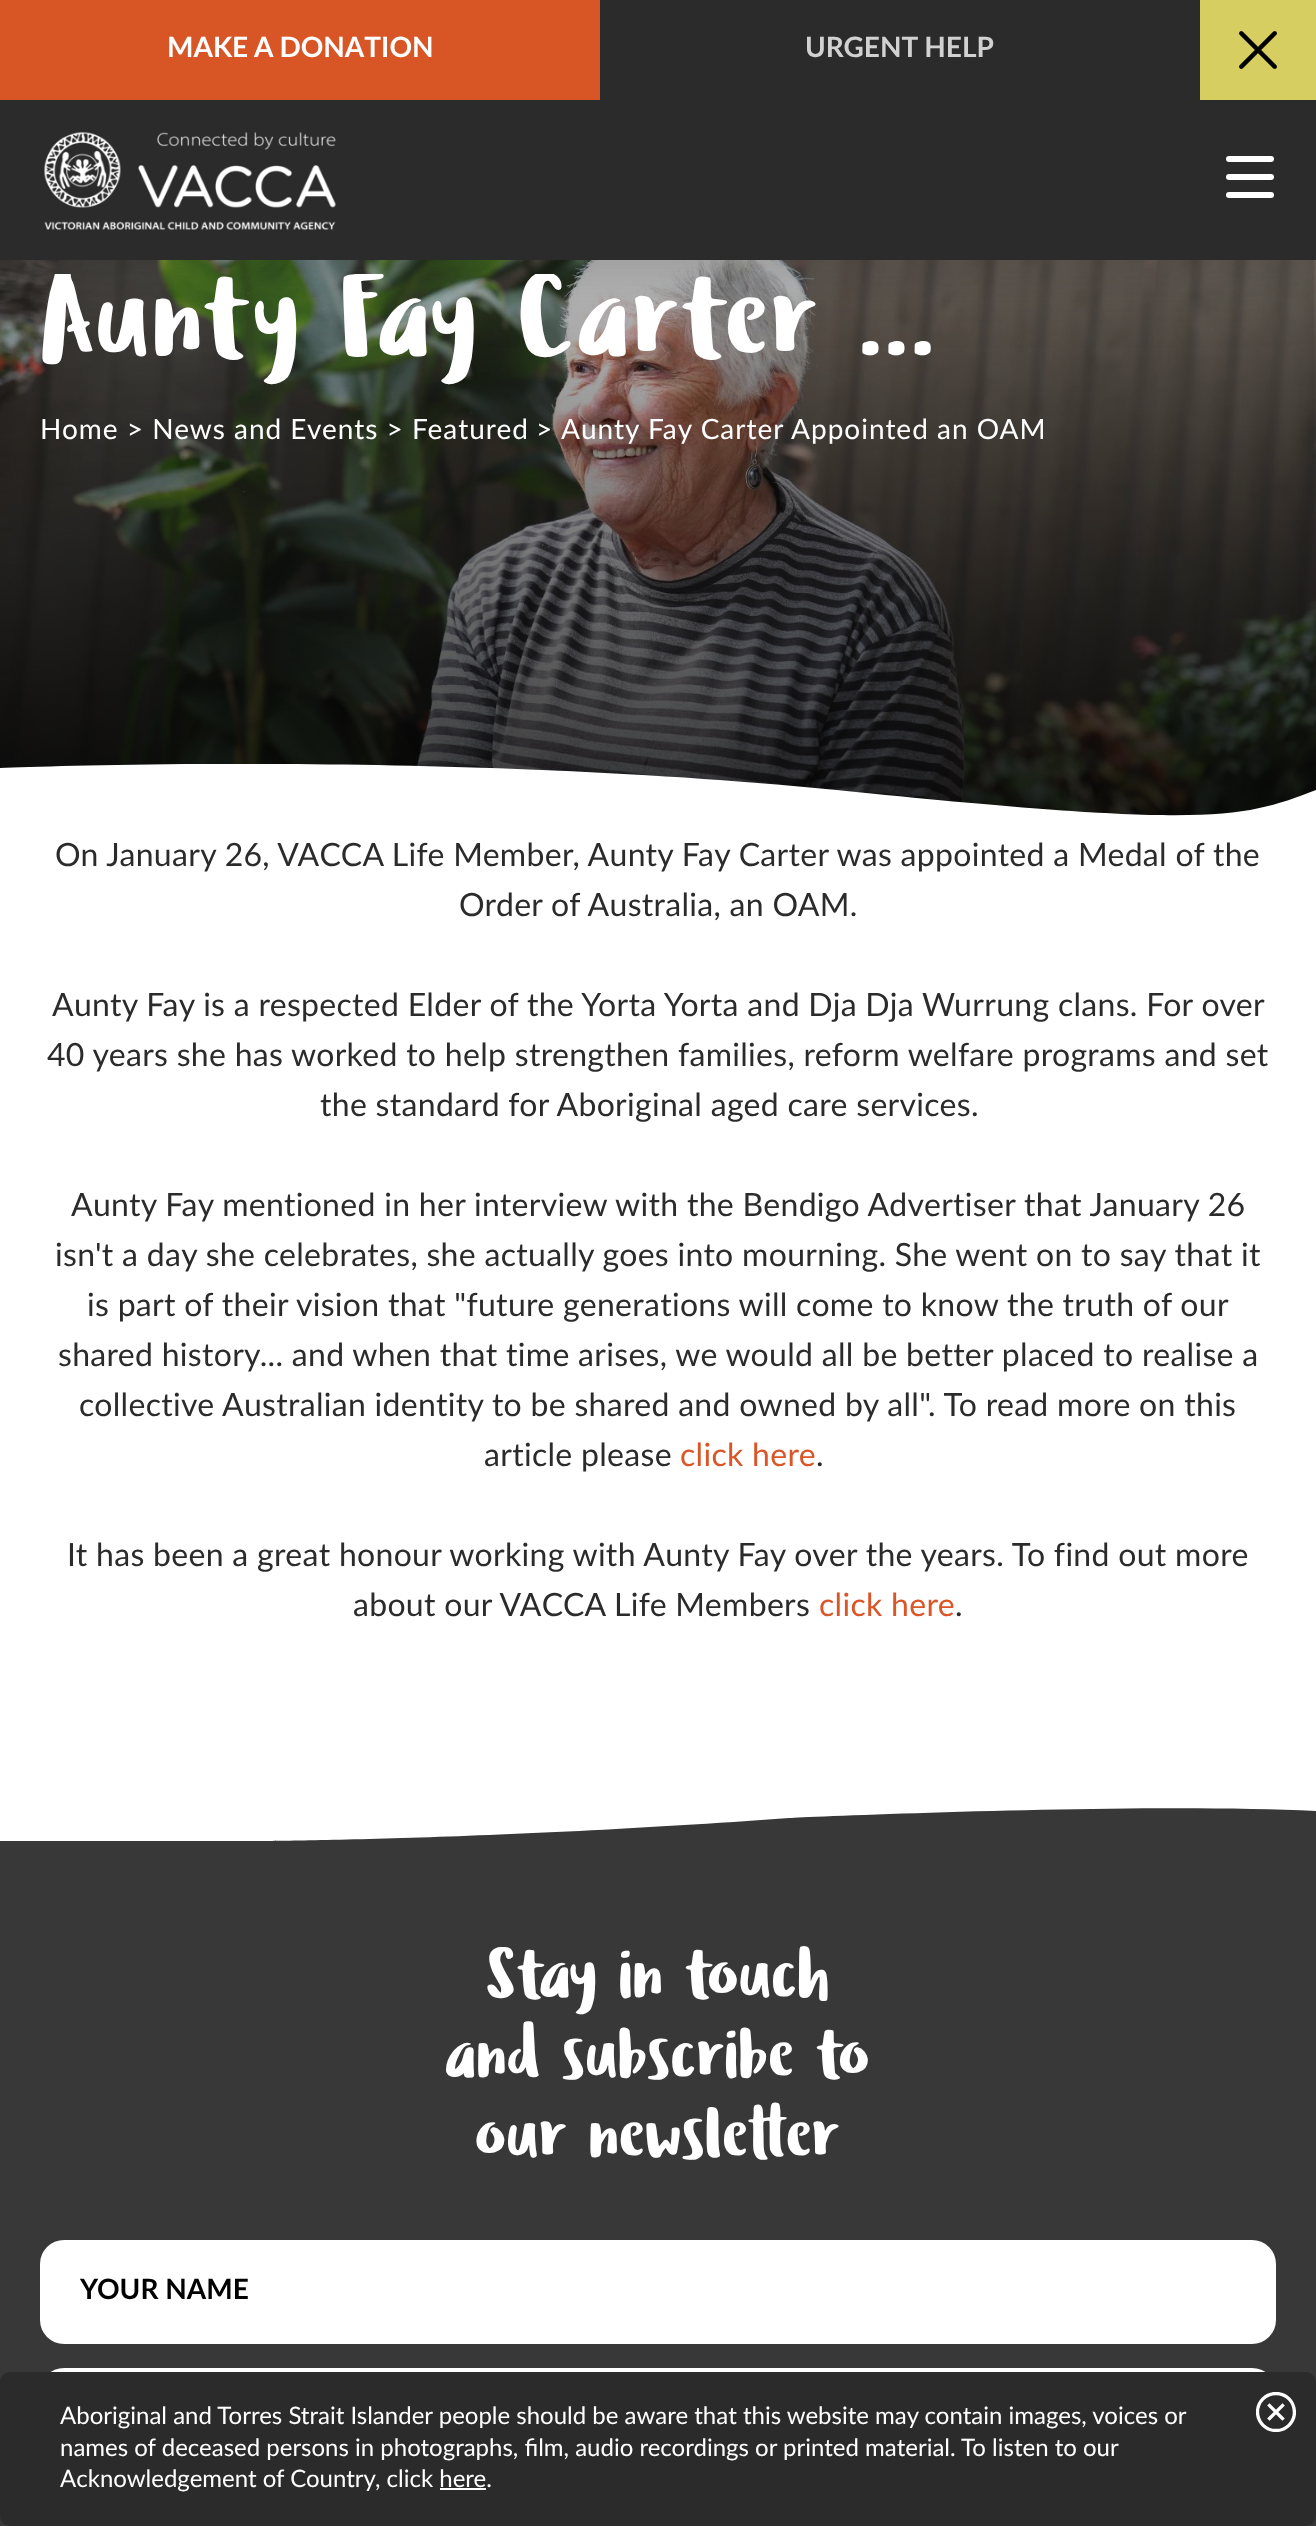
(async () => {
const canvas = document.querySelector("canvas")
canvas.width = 1316
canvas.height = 2526
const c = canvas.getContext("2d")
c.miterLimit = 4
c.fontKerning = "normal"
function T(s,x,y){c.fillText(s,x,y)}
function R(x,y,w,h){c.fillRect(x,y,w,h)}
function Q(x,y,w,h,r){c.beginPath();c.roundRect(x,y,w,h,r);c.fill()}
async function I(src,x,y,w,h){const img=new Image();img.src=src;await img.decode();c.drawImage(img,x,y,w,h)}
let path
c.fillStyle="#fff"
R(0,0,1316,2526)
await I("3.png",0,260,1316,556)
c.fillStyle="#00000014"
c.filter="blur(15px)"
c.beginPath()
c.rect(0,110,1316,160)
c.fill()
c.filter="none"
c.fillStyle="#0000001c"
c.filter="blur(30px)"
c.beginPath()
c.rect(0,130,1316,160)
c.fill()
c.filter="none"
c.fillStyle="#d85625"
R(0,0,600,100)
c.font="bold 28px Lato"
c.fillStyle="#fff"
T("MAKE A DONATION",167,57)
c.fillStyle="#2b2b2b"
R(600,0,600,100)
c.fillStyle="#d1d1d1"
T("URGENT HELP",805,57)
c.fillStyle="#d7ce61"
R(1200,0,116,100)
await I("1.png",1239,31,38,38)
c.fillStyle="#2b2b2b"
R(0,100,1316,160)
await I("2.png",44,131,292,99)
c.fillStyle="#fff"
Q(1226,156,48,6,3)
Q(1226,174,48,6,3)
Q(1226,192,48,6,3)
c.save()
c.beginPath()
c.rect(40,274,928,120)
c.clip()
c.letterSpacing="2.8px"
c.font="120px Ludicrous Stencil"
T("Aunty Fay Carter ...",40,357)
c.restore()
c.letterSpacing="1px"
c.font="28px Lato"
T("Home > News and Events > Featured",40,439)
T(">",536,439)
T("Aunty Fay Carter Appointed an OAM",561,439)
c.save()
c.beginPath()
c.rect(0,764,1316,68)
c.clip()
path = new Path2D("M1316 834v-44c-73 28-103 38-460 2c-377-39-779-27-856-24v66z")
c.fill(path)
c.restore()
c.letterSpacing="0.3px"
c.font="32px Lato"
c.fillStyle="#2b2b2b"
T("On January 26, VACCA Life Member, Aunty Fay Carter was appointed a Medal of the",55,866)
T("Order of Australia, an OAM.",459,916)
T("Aunty Fay is a respected Elder of the Yorta Yorta and Dja Dja Wurrung clans. For over",52,1016)
T("40 years she has worked to help strengthen families, reform welfare programs and set",47,1066)
T("the standard for Aboriginal aged care services.",320,1116)
T("Aunty Fay mentioned in her interview with the Bendigo Advertiser that January 26",71,1216)
T("isn't a day she celebrates, she actually goes into mourning. She went on to say that it",55,1266)
T("is part of their vision that \"future generations will come to know the truth of our",87,1316)
T("shared history... and when that time arises, we would all be better placed to realise a",58,1366)
T("collective Australian identity to be shared and owned by all\". To read more on this",79,1416)
T("article please",484,1466)
c.fillStyle="#da5527"
T("click here",680,1466)
c.fillStyle="#2b2b2b"
T(".",816,1466)
T("It has been a great honour working with Aunty Fay over the years. To find out more",67,1566)
T("about our VACCA Life Members",353,1616)
c.fillStyle="#da5527"
T("click here",819,1616)
c.fillStyle="#2b2b2b"
T(".",955,1616)
c.fillStyle="#383838"
path = new Path2D("M0 1866h1316v-55c-182-9-527 7-527 7c-300 22-530 23-530 23h-259z")
c.fill(path,"evenodd")
R(0,1866,1316,660)
c.letterSpacing="0px"
c.font="72px Ludicrous Stencil"
c.fillStyle="#fff"
T("Stay in touch",486,1998)
T("and subscribe to",445,2078)
T("our newsletter",475,2158)
Q(40,2240,1236,104,24)
c.font="bold 28px Lato"
c.fillStyle="#000"
T("YOUR NAME",80,2299)
c.fillStyle="#fff"
Q(40,2368,1236,104,24)
c.fillStyle="#2b2b2b"
Q(0,2372,1316,154,10)
c.font="24px Lato"
c.fillStyle="#fff"
T("Aboriginal and Torres Strait Islander people should be aware that this website may contain images, voices or",60,2424)
T("names of deceased persons in photographs, film, audio recordings or printed material. To listen to our",60,2456)
T("Acknowledgement of Country, click here.",60,2487)
R(440,2488,46,2)
path = new Path2D("M1282.5 2405.5l-13 13m13 0l-13-13")
c.strokeStyle="#fff"
c.lineWidth=3.3
c.lineCap="square"
c.stroke(path)
c.save()
c.beginPath()
c.rect(1256,2392,40,40)
c.clip()
c.beginPath()
c.arc(1276,2412,18.5,0,7)
c.stroke()
c.restore()
})()
